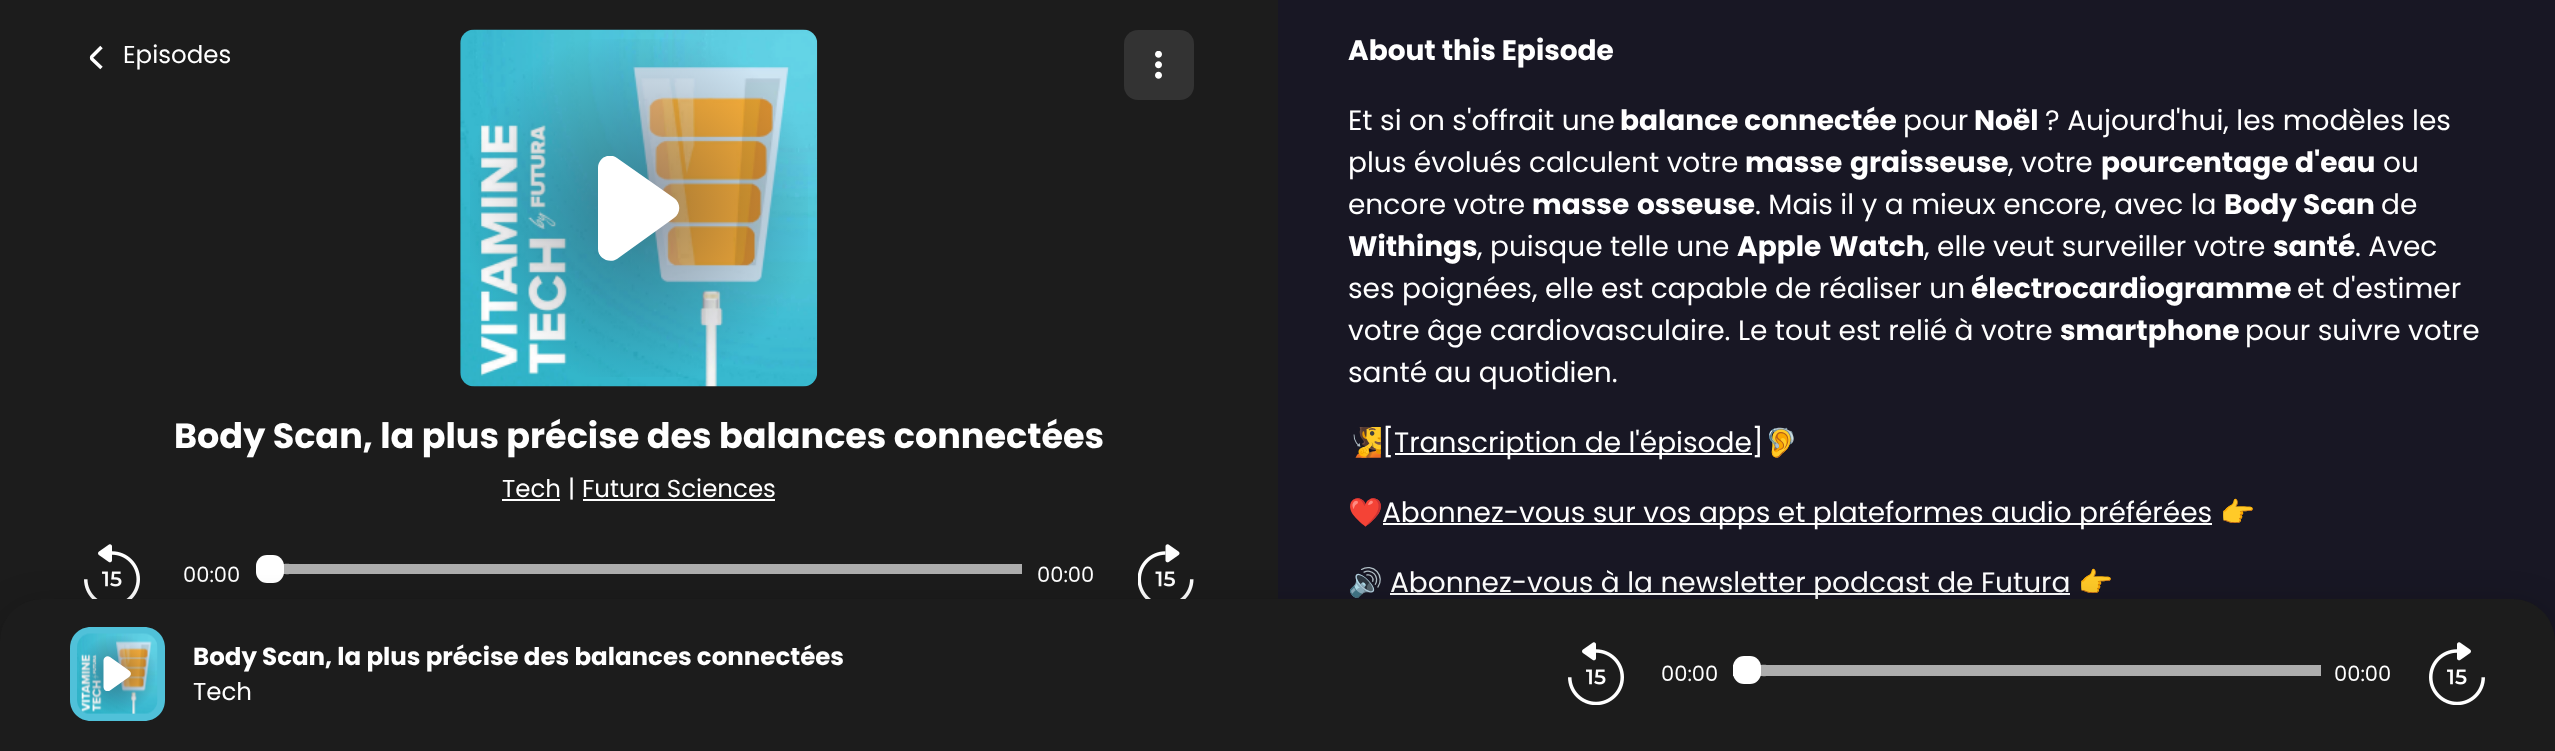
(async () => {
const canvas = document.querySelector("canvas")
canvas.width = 2555
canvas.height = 751
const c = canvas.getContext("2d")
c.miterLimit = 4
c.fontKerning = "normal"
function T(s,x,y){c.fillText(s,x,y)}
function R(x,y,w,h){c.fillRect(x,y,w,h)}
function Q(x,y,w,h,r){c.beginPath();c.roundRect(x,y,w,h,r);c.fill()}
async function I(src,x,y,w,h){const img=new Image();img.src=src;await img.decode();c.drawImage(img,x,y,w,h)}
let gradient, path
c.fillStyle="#1c1c1c"
R(0,0,2555,751)
path = new Path2D("M101.5 47l-9.5 9.5c-.5 .5-.5 2 0 2.5l9.5 9")
c.strokeStyle="#fff"
c.lineWidth=3.5
c.stroke(path)
c.font="24.5px Poppins"
c.fillStyle="#fff"
T("Episodes",123,63)
c.fillStyle="#333"
Q(1124,30,70,70,14)
await I("1.png",1155,51,7,28)
await I("2.png",460,29,358,358)
gradient = c.createRadialGradient(639,208,0,639,208,179)
gradient.addColorStop(0,"#18172466")
gradient.addColorStop(1,"#18172400")
c.fillStyle = gradient
R(470,39,338,338)
c.save()
c.beginPath()
c.rect(586,156,105,105)
c.clip()
c.fillStyle="#fff"
path = new Path2D("M598 249v-81c0-10 11-16 19-10l57 40c7 5 7 15 0 20l-57 41c-8 5-19-1-19-10z")
c.fill(path)
c.restore()
c.font="bold 35px Poppins"
c.fillStyle="#fff"
T("Body Scan, la plus précise des balances connectées",174,448)
c.font="24.5px Poppins"
T("Tech",502,497)
R(502,499,58,2)
T("|",568,497)
T("Futura Sciences",582,497)
R(583,499,192,2)
await I("3.png",84,544,56,55)
c.font="21px Poppins"
T("00:00",183,582)
c.fillStyle="#adadad"
R(1020,564,2,10)
Q(1012,564,10,10,2)
Q(1010,564,10,10,2)
Q(1008,564,11,10,2)
Q(1006,564,11,10,2)
Q(1005,564,10,10,2)
Q(1003,564,10,10,2)
Q(1001,564,11,10,2)
Q(999,564,11,10,2)
Q(998,564,10,10,2)
Q(996,564,10,10,2)
Q(994,564,11,10,2)
Q(992,564,11,10,2)
Q(991,564,10,10,2)
Q(989,564,10,10,2)
Q(987,564,11,10,2)
Q(985,564,11,10,2)
Q(984,564,10,10,2)
Q(982,564,10,10,2)
Q(980,564,11,10,2)
Q(978,564,11,10,2)
Q(977,564,10,10,2)
Q(975,564,10,10,2)
Q(973,564,11,10,2)
Q(971,564,11,10,2)
Q(970,564,10,10,2)
Q(968,564,10,10,2)
Q(966,564,11,10,2)
Q(964,564,11,10,2)
Q(963,564,10,10,2)
Q(961,564,10,10,2)
Q(959,564,11,10,2)
Q(957,564,11,10,2)
Q(956,564,10,10,2)
Q(954,564,10,10,2)
Q(952,564,11,10,2)
Q(950,564,11,10,2)
Q(949,564,10,10,2)
Q(947,564,10,10,2)
Q(945,564,11,10,2)
Q(943,564,11,10,2)
Q(942,564,10,10,2)
Q(940,564,10,10,2)
Q(938,564,11,10,2)
Q(936,564,11,10,2)
Q(935,564,10,10,2)
Q(933,564,10,10,2)
Q(931,564,11,10,2)
Q(929,564,11,10,2)
Q(928,564,10,10,2)
Q(926,564,10,10,2)
Q(924,564,11,10,2)
Q(922,564,11,10,2)
Q(921,564,10,10,2)
Q(919,564,10,10,2)
Q(917,564,11,10,2)
Q(915,564,11,10,2)
Q(914,564,10,10,2)
Q(912,564,10,10,2)
Q(910,564,11,10,2)
Q(908,564,11,10,2)
Q(907,564,10,10,2)
Q(905,564,10,10,2)
Q(903,564,11,10,2)
Q(901,564,11,10,2)
Q(900,564,10,10,2)
Q(898,564,10,10,2)
Q(896,564,11,10,2)
Q(894,564,11,10,2)
Q(893,564,10,10,2)
Q(891,564,10,10,2)
Q(889,564,11,10,2)
Q(887,564,11,10,2)
Q(886,564,10,10,2)
Q(884,564,10,10,2)
Q(882,564,11,10,2)
Q(880,564,11,10,2)
Q(879,564,10,10,2)
Q(877,564,10,10,2)
Q(875,564,11,10,2)
Q(873,564,11,10,2)
Q(872,564,10,10,2)
Q(870,564,10,10,2)
Q(868,564,11,10,2)
Q(866,564,11,10,2)
Q(865,564,10,10,2)
Q(863,564,10,10,2)
Q(861,564,11,10,2)
Q(859,564,11,10,2)
Q(858,564,10,10,2)
Q(856,564,10,10,2)
Q(854,564,11,10,2)
Q(852,564,11,10,2)
Q(851,564,10,10,2)
Q(849,564,10,10,2)
Q(847,564,11,10,2)
Q(845,564,11,10,2)
Q(844,564,10,10,2)
Q(842,564,10,10,2)
Q(840,564,11,10,2)
Q(838,564,11,10,2)
Q(837,564,10,10,2)
Q(835,564,10,10,2)
Q(833,564,11,10,2)
Q(831,564,11,10,2)
Q(830,564,10,10,2)
Q(828,564,10,10,2)
Q(826,564,11,10,2)
Q(824,564,11,10,2)
Q(823,564,10,10,2)
Q(821,564,10,10,2)
Q(819,564,11,10,2)
Q(817,564,11,10,2)
Q(816,564,10,10,2)
Q(814,564,10,10,2)
Q(812,564,11,10,2)
Q(810,564,11,10,2)
Q(809,564,10,10,2)
Q(807,564,10,10,2)
Q(805,564,11,10,2)
Q(803,564,11,10,2)
Q(802,564,10,10,2)
Q(800,564,10,10,2)
Q(798,564,11,10,2)
Q(796,564,11,10,2)
Q(795,564,10,10,2)
Q(793,564,10,10,2)
Q(791,564,11,10,2)
Q(789,564,11,10,2)
Q(788,564,10,10,2)
Q(786,564,10,10,2)
Q(784,564,11,10,2)
Q(782,564,11,10,2)
Q(781,564,10,10,2)
Q(779,564,10,10,2)
Q(777,564,11,10,2)
Q(775,564,11,10,2)
Q(774,564,10,10,2)
Q(772,564,10,10,2)
Q(770,564,11,10,2)
Q(768,564,11,10,2)
Q(767,564,10,10,2)
Q(765,564,10,10,2)
Q(763,564,11,10,2)
Q(761,564,11,10,2)
Q(760,564,10,10,2)
Q(758,564,10,10,2)
Q(756,564,11,10,2)
Q(754,564,11,10,2)
Q(753,564,10,10,2)
Q(751,564,10,10,2)
Q(749,564,11,10,2)
Q(747,564,11,10,2)
Q(746,564,10,10,2)
Q(744,564,10,10,2)
Q(742,564,11,10,2)
Q(740,564,11,10,2)
Q(739,564,10,10,2)
Q(737,564,10,10,2)
Q(735,564,11,10,2)
Q(733,564,11,10,2)
Q(732,564,10,10,2)
Q(730,564,10,10,2)
Q(728,564,11,10,2)
Q(726,564,11,10,2)
Q(725,564,10,10,2)
Q(723,564,10,10,2)
Q(721,564,11,10,2)
Q(719,564,11,10,2)
Q(718,564,10,10,2)
Q(716,564,10,10,2)
Q(714,564,11,10,2)
Q(712,564,11,10,2)
Q(711,564,10,10,2)
Q(709,564,10,10,2)
Q(707,564,11,10,2)
Q(705,564,11,10,2)
Q(704,564,10,10,2)
Q(702,564,10,10,2)
Q(700,564,11,10,2)
Q(698,564,11,10,2)
Q(697,564,10,10,2)
Q(695,564,10,10,2)
Q(693,564,11,10,2)
Q(691,564,11,10,2)
Q(690,564,10,10,2)
Q(688,564,10,10,2)
Q(686,564,11,10,2)
Q(684,564,11,10,2)
Q(683,564,10,10,2)
Q(681,564,10,10,2)
Q(679,564,11,10,2)
Q(677,564,11,10,2)
Q(676,564,10,10,2)
Q(674,564,10,10,2)
Q(672,564,11,10,2)
Q(670,564,11,10,2)
Q(669,564,10,10,2)
Q(667,564,10,10,2)
Q(665,564,11,10,2)
Q(663,564,11,10,2)
Q(662,564,10,10,2)
Q(660,564,10,10,2)
Q(658,564,11,10,2)
Q(656,564,11,10,2)
Q(655,564,10,10,2)
Q(653,564,10,10,2)
Q(651,564,11,10,2)
Q(649,564,11,10,2)
Q(648,564,10,10,2)
Q(646,564,10,10,2)
Q(644,564,11,10,2)
Q(642,564,11,10,2)
Q(641,564,10,10,2)
Q(639,564,10,10,2)
Q(637,564,11,10,2)
Q(635,564,11,10,2)
Q(634,564,10,10,2)
Q(632,564,10,10,2)
Q(630,564,11,10,2)
Q(628,564,11,10,2)
Q(627,564,10,10,2)
Q(625,564,10,10,2)
Q(623,564,11,10,2)
Q(621,564,11,10,2)
Q(620,564,10,10,2)
Q(618,564,10,10,2)
Q(616,564,11,10,2)
Q(614,564,11,10,2)
Q(613,564,10,10,2)
Q(611,564,10,10,2)
Q(609,564,11,10,2)
Q(607,564,11,10,2)
Q(606,564,10,10,2)
Q(604,564,10,10,2)
Q(602,564,11,10,2)
Q(600,564,11,10,2)
Q(599,564,10,10,2)
Q(597,564,10,10,2)
Q(595,564,11,10,2)
Q(593,564,11,10,2)
Q(592,564,10,10,2)
Q(590,564,10,10,2)
Q(588,564,11,10,2)
Q(586,564,11,10,2)
Q(585,564,10,10,2)
Q(583,564,10,10,2)
Q(581,564,11,10,2)
Q(579,564,11,10,2)
Q(578,564,10,10,2)
Q(576,564,10,10,2)
Q(574,564,11,10,2)
Q(572,564,11,10,2)
Q(571,564,10,10,2)
Q(569,564,10,10,2)
Q(567,564,11,10,2)
Q(565,564,11,10,2)
Q(564,564,10,10,2)
Q(562,564,10,10,2)
Q(560,564,11,10,2)
Q(558,564,11,10,2)
Q(557,564,10,10,2)
Q(555,564,10,10,2)
Q(553,564,11,10,2)
Q(551,564,11,10,2)
Q(550,564,10,10,2)
Q(548,564,10,10,2)
Q(546,564,11,10,2)
Q(544,564,11,10,2)
Q(543,564,10,10,2)
Q(541,564,10,10,2)
Q(539,564,11,10,2)
Q(537,564,11,10,2)
Q(536,564,10,10,2)
Q(534,564,10,10,2)
Q(532,564,11,10,2)
Q(530,564,11,10,2)
Q(529,564,10,10,2)
Q(527,564,10,10,2)
Q(525,564,11,10,2)
Q(523,564,11,10,2)
Q(522,564,10,10,2)
Q(520,564,10,10,2)
Q(518,564,11,10,2)
Q(516,564,11,10,2)
Q(515,564,10,10,2)
Q(513,564,10,10,2)
Q(511,564,11,10,2)
Q(509,564,11,10,2)
Q(508,564,10,10,2)
Q(506,564,10,10,2)
Q(504,564,11,10,2)
Q(502,564,11,10,2)
Q(501,564,10,10,2)
Q(499,564,10,10,2)
Q(497,564,11,10,2)
Q(495,564,11,10,2)
Q(494,564,10,10,2)
Q(492,564,10,10,2)
Q(490,564,11,10,2)
Q(488,564,11,10,2)
Q(487,564,10,10,2)
Q(485,564,10,10,2)
Q(483,564,11,10,2)
Q(481,564,11,10,2)
Q(480,564,10,10,2)
Q(478,564,10,10,2)
Q(476,564,11,10,2)
Q(474,564,11,10,2)
Q(473,564,10,10,2)
Q(471,564,10,10,2)
Q(469,564,11,10,2)
Q(467,564,11,10,2)
Q(466,564,10,10,2)
Q(464,564,10,10,2)
Q(462,564,11,10,2)
Q(460,564,11,10,2)
Q(459,564,10,10,2)
Q(457,564,10,10,2)
Q(455,564,11,10,2)
Q(453,564,11,10,2)
Q(452,564,10,10,2)
Q(450,564,10,10,2)
Q(448,564,11,10,2)
Q(446,564,11,10,2)
Q(445,564,10,10,2)
Q(443,564,10,10,2)
Q(441,564,11,10,2)
Q(439,564,11,10,2)
Q(438,564,10,10,2)
Q(436,564,10,10,2)
Q(434,564,11,10,2)
Q(432,564,11,10,2)
Q(431,564,10,10,2)
Q(429,564,10,10,2)
Q(427,564,11,10,2)
Q(425,564,11,10,2)
Q(424,564,10,10,2)
Q(422,564,10,10,2)
Q(420,564,11,10,2)
Q(418,564,11,10,2)
Q(417,564,10,10,2)
Q(415,564,10,10,2)
Q(413,564,11,10,2)
Q(411,564,11,10,2)
Q(410,564,10,10,2)
Q(408,564,10,10,2)
Q(406,564,11,10,2)
Q(404,564,11,10,2)
Q(403,564,10,10,2)
Q(401,564,10,10,2)
Q(399,564,11,10,2)
Q(397,564,11,10,2)
Q(396,564,10,10,2)
Q(394,564,10,10,2)
Q(392,564,11,10,2)
Q(390,564,11,10,2)
Q(389,564,10,10,2)
Q(387,564,10,10,2)
Q(385,564,11,10,2)
Q(383,564,11,10,2)
Q(382,564,10,10,2)
Q(380,564,10,10,2)
Q(378,564,11,10,2)
Q(376,564,11,10,2)
Q(375,564,10,10,2)
Q(373,564,10,10,2)
Q(371,564,11,10,2)
Q(369,564,11,10,2)
Q(368,564,10,10,2)
Q(366,564,10,10,2)
Q(364,564,11,10,2)
Q(362,564,11,10,2)
Q(361,564,10,10,2)
Q(359,564,10,10,2)
Q(357,564,11,10,2)
Q(355,564,11,10,2)
Q(354,564,10,10,2)
Q(352,564,10,10,2)
Q(350,564,11,10,2)
Q(348,564,11,10,2)
Q(347,564,10,10,2)
Q(345,564,10,10,2)
Q(343,564,11,10,2)
Q(341,564,11,10,2)
Q(340,564,10,10,2)
Q(338,564,10,10,2)
Q(336,564,11,10,2)
Q(334,564,11,10,2)
Q(333,564,10,10,2)
Q(331,564,10,10,2)
Q(329,564,11,10,2)
Q(327,564,11,10,2)
Q(326,564,10,10,2)
Q(324,564,10,10,2)
Q(322,564,11,10,2)
Q(320,564,11,10,2)
Q(319,564,10,10,2)
Q(317,564,10,10,2)
Q(315,564,11,10,2)
Q(313,564,11,10,2)
Q(312,564,10,10,2)
Q(310,564,10,10,2)
Q(308,564,11,10,2)
Q(306,564,11,10,2)
Q(305,564,10,10,2)
Q(303,564,10,10,2)
Q(301,564,11,10,2)
Q(299,564,11,10,2)
Q(298,564,10,10,2)
Q(296,564,10,10,2)
Q(294,564,11,10,2)
Q(292,564,11,10,2)
Q(291,564,10,10,2)
Q(289,564,10,10,2)
Q(287,564,11,10,2)
Q(285,564,11,10,2)
Q(284,564,10,10,2)
path = new Path2D("M284 564h-.5v10h3.5c5 0 5 0 5-5c0-1.5 .5-5-2-5z")
c.fill(path)
path = new Path2D("M283.5 574c1.5 0 7 1 7.5-1.5v-7c-.5-2.5-5.5-1.5-7.5-1.5z")
c.fill(path)
path = new Path2D("M283.5 574c5 0 5.5 .5 5.5-5c0-5.5 0-5-5.5-5z")
c.fill(path)
path = new Path2D("M283.5 574c4 0 3.5-1 3.5-5c0-3.5 .5-5-3.5-5z")
c.fill(path)
path = new Path2D("M283.5 574c2-.5 1.5-3.5 1.5-5c0-1.5 .5-4.5-1.5-5z")
c.fill(path)
c.fillStyle="#fff"
Q(256,555,28,28,11)
T("00:00",1037,582)
await I("4.png",1138,544,56,55)
c.fillStyle="#181724"
R(1278,0,1277,641)
c.font="bold 28px Poppins"
c.fillStyle="#fff"
T("About this Episode",1348,60)
c.font="28px Poppins"
T("Et si on s'offrait une",1348,130)
c.font="bold 28px Poppins"
T("balance connectée",1620,130)
c.font="28px Poppins"
T("pour",1903,130)
c.font="bold 28px Poppins"
T("Noël",1974,130)
c.font="28px Poppins"
T("? Aujourd'hui, les modèles les",2045,130)
T("plus évolués calculent votre",1348,172)
c.font="bold 28px Poppins"
T("masse",1745,172)
T("graisseuse",1850,172)
c.font="28px Poppins"
T(", votre",2008,172)
c.font="bold 28px Poppins"
T("pourcentage",2101,172)
T("d'eau",2295,172)
c.font="28px Poppins"
T("ou",2383,172)
T("encore votre",1348,214)
c.font="bold 28px Poppins"
T("masse",1532,214)
T("osseuse",1637,214)
c.font="28px Poppins"
T(". Mais il y a mieux encore, avec la",1755,214)
c.font="bold 28px Poppins"
T("Body Scan",2224,214)
c.font="28px Poppins"
T("de",2381,214)
c.font="bold 28px Poppins"
T("Withings",1348,256)
c.font="28px Poppins"
T(", puisque telle une",1477,256)
c.font="bold 28px Poppins"
T("Apple",1737,256)
T("Watch",1829,256)
c.font="28px Poppins"
T(", elle veut surveiller votre",1924,256)
c.font="bold 28px Poppins"
T("santé",2273,256)
c.font="28px Poppins"
T(". Avec",2355,256)
T("ses poignées, elle est capable de réaliser un",1348,298)
c.font="bold 28px Poppins"
T("électrocardiogramme",1971,298)
c.font="28px Poppins"
T("et d'estimer",2297,298)
T("votre âge cardiovasculaire. Le tout est relié à votre",1348,340)
c.font="bold 28px Poppins"
T("smartphone",2060,340)
c.font="28px Poppins"
T("pour suivre votre",2245,340)
T("santé au quotidien.",1348,382)
c.font="28px Noto Color Emoji"
T("🧏",1348,452)
c.font="28px Poppins"
T("[",1382,452)
R(1395,453,357,2)
T("Transcription de l'épisode]",1394,452)
c.font="28px Noto Color Emoji"
T("🦻",1764,452)
T("❤️",1348,522)
R(1383,523,829,2)
c.font="28px Poppins"
T("Abonnez-vous sur vos apps et plateformes audio préférées",1382,522)
c.font="28px Noto Color Emoji"
T("👉",2220,522)
T("🔊",1348,592)
R(1390,593,680,2)
c.font="28px Poppins"
T("Abonnez-vous à la newsletter podcast de Futura",1390,592)
c.font="28px Noto Color Emoji"
T("👉",2078,592)
c.fillStyle="#1c1c1c"
path = new Path2D("M42 599h2471c23 0 42 19 42 42v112h-2555v-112c0-23 19-42 42-42z")
c.fill(path)
c.save()
path = new Path2D("M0 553h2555v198h-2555zm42 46h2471c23 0 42 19 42 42v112h-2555v-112c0-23 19-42 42-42z")
c.clip(path,"evenodd")
c.fillStyle="#0000003d"
c.filter="blur(17.5px)"
c.beginPath()
c.roundRect(0,607,2555,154,42)
c.fill()
c.filter="none"
c.restore()
c.fillStyle="#50c1d9"
path = new Path2D("M91 627h53c12 0 21 9 21 21v52c0 12-9 21-21 21h-53c-12 0-21-9-21-21v-52c0-12 9-21 21-21z")
c.fill(path)
await I("5.png",77,633,81,81)
gradient = c.createRadialGradient(117,674,0,117,674,40)
gradient.addColorStop(0,"#18172466")
gradient.addColorStop(1,"#18172400")
c.fillStyle = gradient
R(79,636,76,76)
c.save()
c.beginPath()
c.rect(100,656,35,35)
c.clip()
c.fillStyle="#fff"
path = new Path2D("M103.5 687v-26.5c0-3.5 4-5.5 6.5-3.5l19 13.5c2.5 1.5 2.5 5 0 6.5l-19 13.5c-2.5 2-6.5 0-6.5-3.5z")
c.fill(path)
c.restore()
c.font="bold 24.5px Poppins"
c.fillStyle="#fff"
T("Body Scan, la plus précise des balances connectées",193,665)
c.font="24.5px Poppins"
T("Tech",193,700)
await I("6.png",1568,642,56,63)
c.font="21px Poppins"
T("00:00",1661,681)
R(1733,665,588,11)
c.save()
c.beginPath()
c.rect(1733,635,588,70)
c.clip()
c.fillStyle="#adadad"
Q(2312,665,10,11,2)
c.restore()
c.fillStyle="#adadad"
Q(2310,665,11,11,2)
Q(2308,665,11,11,2)
Q(2307,665,10,11,2)
Q(2305,665,10,11,2)
Q(2303,665,11,11,2)
Q(2301,665,11,11,2)
Q(2300,665,10,11,2)
Q(2298,665,10,11,2)
Q(2296,665,11,11,2)
Q(2294,665,11,11,2)
Q(2293,665,10,11,2)
Q(2291,665,10,11,2)
Q(2289,665,11,11,2)
Q(2287,665,11,11,2)
Q(2286,665,10,11,2)
Q(2284,665,10,11,2)
Q(2282,665,11,11,2)
Q(2280,665,11,11,2)
Q(2279,665,10,11,2)
Q(2277,665,10,11,2)
Q(2275,665,11,11,2)
Q(2273,665,11,11,2)
Q(2272,665,10,11,2)
Q(2270,665,10,11,2)
Q(2268,665,11,11,2)
Q(2266,665,11,11,2)
Q(2265,665,10,11,2)
Q(2263,665,10,11,2)
Q(2261,665,11,11,2)
Q(2259,665,11,11,2)
Q(2258,665,10,11,2)
Q(2256,665,10,11,2)
Q(2254,665,11,11,2)
Q(2252,665,11,11,2)
Q(2251,665,10,11,2)
Q(2249,665,10,11,2)
Q(2247,665,11,11,2)
Q(2245,665,11,11,2)
Q(2244,665,10,11,2)
Q(2242,665,10,11,2)
Q(2240,665,11,11,2)
Q(2238,665,11,11,2)
Q(2237,665,10,11,2)
Q(2235,665,10,11,2)
Q(2233,665,11,11,2)
Q(2231,665,11,11,2)
Q(2230,665,10,11,2)
Q(2228,665,10,11,2)
Q(2226,665,11,11,2)
Q(2224,665,11,11,2)
Q(2223,665,10,11,2)
Q(2221,665,10,11,2)
Q(2219,665,11,11,2)
Q(2217,665,11,11,2)
Q(2216,665,10,11,2)
Q(2214,665,10,11,2)
Q(2212,665,11,11,2)
Q(2210,665,11,11,2)
Q(2209,665,10,11,2)
Q(2207,665,10,11,2)
Q(2205,665,11,11,2)
Q(2203,665,11,11,2)
Q(2202,665,10,11,2)
Q(2200,665,10,11,2)
Q(2198,665,11,11,2)
Q(2196,665,11,11,2)
Q(2195,665,10,11,2)
Q(2193,665,10,11,2)
Q(2191,665,11,11,2)
Q(2189,665,11,11,2)
Q(2188,665,10,11,2)
Q(2186,665,10,11,2)
Q(2184,665,11,11,2)
Q(2182,665,11,11,2)
Q(2181,665,10,11,2)
Q(2179,665,10,11,2)
Q(2177,665,11,11,2)
Q(2175,665,11,11,2)
Q(2174,665,10,11,2)
Q(2172,665,10,11,2)
Q(2170,665,11,11,2)
Q(2168,665,11,11,2)
Q(2167,665,10,11,2)
Q(2165,665,10,11,2)
Q(2163,665,11,11,2)
Q(2161,665,11,11,2)
Q(2160,665,10,11,2)
Q(2158,665,10,11,2)
Q(2156,665,11,11,2)
Q(2154,665,11,11,2)
Q(2153,665,10,11,2)
Q(2151,665,10,11,2)
Q(2149,665,11,11,2)
Q(2147,665,11,11,2)
Q(2146,665,10,11,2)
Q(2144,665,10,11,2)
Q(2142,665,11,11,2)
Q(2140,665,11,11,2)
Q(2139,665,10,11,2)
Q(2137,665,10,11,2)
Q(2135,665,11,11,2)
Q(2133,665,11,11,2)
Q(2132,665,10,11,2)
Q(2130,665,10,11,2)
Q(2128,665,11,11,2)
Q(2126,665,11,11,2)
Q(2125,665,10,11,2)
Q(2123,665,10,11,2)
Q(2121,665,11,11,2)
Q(2119,665,11,11,2)
Q(2118,665,10,11,2)
Q(2116,665,10,11,2)
Q(2114,665,11,11,2)
Q(2112,665,11,11,2)
Q(2111,665,10,11,2)
Q(2109,665,10,11,2)
Q(2107,665,11,11,2)
Q(2105,665,11,11,2)
Q(2104,665,10,11,2)
Q(2102,665,10,11,2)
Q(2100,665,11,11,2)
Q(2098,665,11,11,2)
Q(2097,665,10,11,2)
Q(2095,665,10,11,2)
Q(2093,665,11,11,2)
Q(2091,665,11,11,2)
Q(2090,665,10,11,2)
Q(2088,665,10,11,2)
Q(2086,665,11,11,2)
Q(2084,665,11,11,2)
Q(2083,665,10,11,2)
Q(2081,665,10,11,2)
Q(2079,665,11,11,2)
Q(2077,665,11,11,2)
Q(2076,665,10,11,2)
Q(2074,665,10,11,2)
Q(2072,665,11,11,2)
Q(2070,665,11,11,2)
Q(2069,665,10,11,2)
Q(2067,665,10,11,2)
Q(2065,665,11,11,2)
Q(2063,665,11,11,2)
Q(2062,665,10,11,2)
Q(2060,665,10,11,2)
Q(2058,665,11,11,2)
Q(2056,665,11,11,2)
Q(2055,665,10,11,2)
Q(2053,665,10,11,2)
Q(2051,665,11,11,2)
Q(2049,665,11,11,2)
Q(2048,665,10,11,2)
Q(2046,665,10,11,2)
Q(2044,665,11,11,2)
Q(2042,665,11,11,2)
Q(2041,665,10,11,2)
Q(2039,665,10,11,2)
Q(2037,665,11,11,2)
Q(2035,665,11,11,2)
Q(2034,665,10,11,2)
Q(2032,665,10,11,2)
Q(2030,665,11,11,2)
Q(2028,665,11,11,2)
Q(2027,665,10,11,2)
Q(2025,665,10,11,2)
Q(2023,665,11,11,2)
Q(2021,665,11,11,2)
Q(2020,665,10,11,2)
Q(2018,665,10,11,2)
Q(2016,665,11,11,2)
Q(2014,665,11,11,2)
Q(2013,665,10,11,2)
Q(2011,665,10,11,2)
Q(2009,665,11,11,2)
Q(2007,665,11,11,2)
Q(2006,665,10,11,2)
Q(2004,665,10,11,2)
Q(2002,665,11,11,2)
Q(2000,665,11,11,2)
Q(1999,665,10,11,2)
Q(1997,665,10,11,2)
Q(1995,665,11,11,2)
Q(1993,665,11,11,2)
Q(1992,665,10,11,2)
Q(1990,665,10,11,2)
Q(1988,665,11,11,2)
Q(1986,665,11,11,2)
Q(1985,665,10,11,2)
Q(1983,665,10,11,2)
Q(1981,665,11,11,2)
Q(1979,665,11,11,2)
Q(1978,665,10,11,2)
Q(1976,665,10,11,2)
Q(1974,665,11,11,2)
Q(1972,665,11,11,2)
Q(1971,665,10,11,2)
Q(1969,665,10,11,2)
Q(1967,665,11,11,2)
Q(1965,665,11,11,2)
Q(1964,665,10,11,2)
Q(1962,665,10,11,2)
Q(1960,665,11,11,2)
Q(1958,665,11,11,2)
Q(1957,665,10,11,2)
Q(1955,665,10,11,2)
Q(1953,665,11,11,2)
Q(1951,665,11,11,2)
Q(1950,665,10,11,2)
Q(1948,665,10,11,2)
Q(1946,665,11,11,2)
Q(1944,665,11,11,2)
Q(1943,665,10,11,2)
Q(1941,665,10,11,2)
Q(1939,665,11,11,2)
Q(1937,665,11,11,2)
Q(1936,665,10,11,2)
Q(1934,665,10,11,2)
Q(1932,665,11,11,2)
Q(1930,665,11,11,2)
Q(1929,665,10,11,2)
Q(1927,665,10,11,2)
Q(1925,665,11,11,2)
Q(1923,665,11,11,2)
Q(1922,665,10,11,2)
Q(1920,665,10,11,2)
Q(1918,665,11,11,2)
Q(1916,665,11,11,2)
Q(1915,665,10,11,2)
Q(1913,665,10,11,2)
Q(1911,665,11,11,2)
Q(1909,665,11,11,2)
Q(1908,665,10,11,2)
Q(1906,665,10,11,2)
Q(1904,665,11,11,2)
Q(1902,665,11,11,2)
Q(1901,665,10,11,2)
Q(1899,665,10,11,2)
Q(1897,665,11,11,2)
Q(1895,665,11,11,2)
Q(1894,665,10,11,2)
Q(1892,665,10,11,2)
Q(1890,665,11,11,2)
Q(1888,665,11,11,2)
Q(1887,665,10,11,2)
Q(1885,665,10,11,2)
Q(1883,665,11,11,2)
Q(1881,665,11,11,2)
Q(1880,665,10,11,2)
Q(1878,665,10,11,2)
Q(1876,665,11,11,2)
Q(1874,665,11,11,2)
Q(1873,665,10,11,2)
Q(1871,665,10,11,2)
Q(1869,665,11,11,2)
Q(1867,665,11,11,2)
Q(1866,665,10,11,2)
Q(1864,665,10,11,2)
Q(1862,665,11,11,2)
Q(1860,665,11,11,2)
Q(1859,665,10,11,2)
Q(1857,665,10,11,2)
Q(1855,665,11,11,2)
Q(1853,665,11,11,2)
Q(1852,665,10,11,2)
Q(1850,665,10,11,2)
Q(1848,665,11,11,2)
Q(1846,665,11,11,2)
Q(1845,665,10,11,2)
Q(1843,665,10,11,2)
Q(1841,665,11,11,2)
Q(1839,665,11,11,2)
Q(1838,665,10,11,2)
Q(1836,665,10,11,2)
Q(1834,665,11,11,2)
Q(1832,665,11,11,2)
Q(1831,665,10,11,2)
Q(1829,665,10,11,2)
Q(1827,665,11,11,2)
Q(1825,665,11,11,2)
Q(1824,665,10,11,2)
Q(1822,665,10,11,2)
Q(1820,665,11,11,2)
Q(1818,665,11,11,2)
Q(1817,665,10,11,2)
Q(1815,665,10,11,2)
Q(1813,665,11,11,2)
Q(1811,665,11,11,2)
Q(1810,665,10,11,2)
Q(1808,665,10,11,2)
Q(1806,665,11,11,2)
Q(1804,665,11,11,2)
Q(1803,665,10,11,2)
Q(1801,665,10,11,2)
Q(1799,665,11,11,2)
Q(1797,665,11,11,2)
Q(1796,665,10,11,2)
Q(1794,665,10,11,2)
Q(1792,665,11,11,2)
Q(1790,665,11,11,2)
Q(1789,665,10,11,2)
Q(1787,665,10,11,2)
Q(1785,665,11,11,2)
Q(1783,665,11,11,2)
Q(1782,665,10,11,2)
Q(1780,665,10,11,2)
Q(1778,665,11,11,2)
Q(1776,665,11,11,2)
Q(1775,665,10,11,2)
Q(1773,665,10,11,2)
Q(1771,665,11,11,2)
Q(1769,665,11,11,2)
Q(1768,665,10,11,2)
Q(1766,665,10,11,2)
Q(1764,665,11,11,2)
Q(1762,665,11,11,2)
Q(1761,665,10,11,2)
path = new Path2D("M1761 665h-.5v11h3.5c5.5 0 5 0 5-5.5c0-1.5 .5-5.5-2-5.5z")
c.fill(path)
path = new Path2D("M1760.5 676c1.5 0 7 1 7.5-1.5v-8c-.5-2.5-6-1.5-7.5-1.5z")
c.fill(path)
path = new Path2D("M1760.5 676c5.5 0 5.5 .5 5.5-5.5c0-6 0-5.5-5.5-5.5z")
c.fill(path)
path = new Path2D("M1760.5 676c4 0 3.5-1.5 3.5-5.5c0-4 .5-5.5-3.5-5.5z")
c.fill(path)
c.fillStyle="#fff"
Q(1733,656,28,28,11)
T("00:00",2334,681)
await I("7.png",2429,642,56,63)
})()
